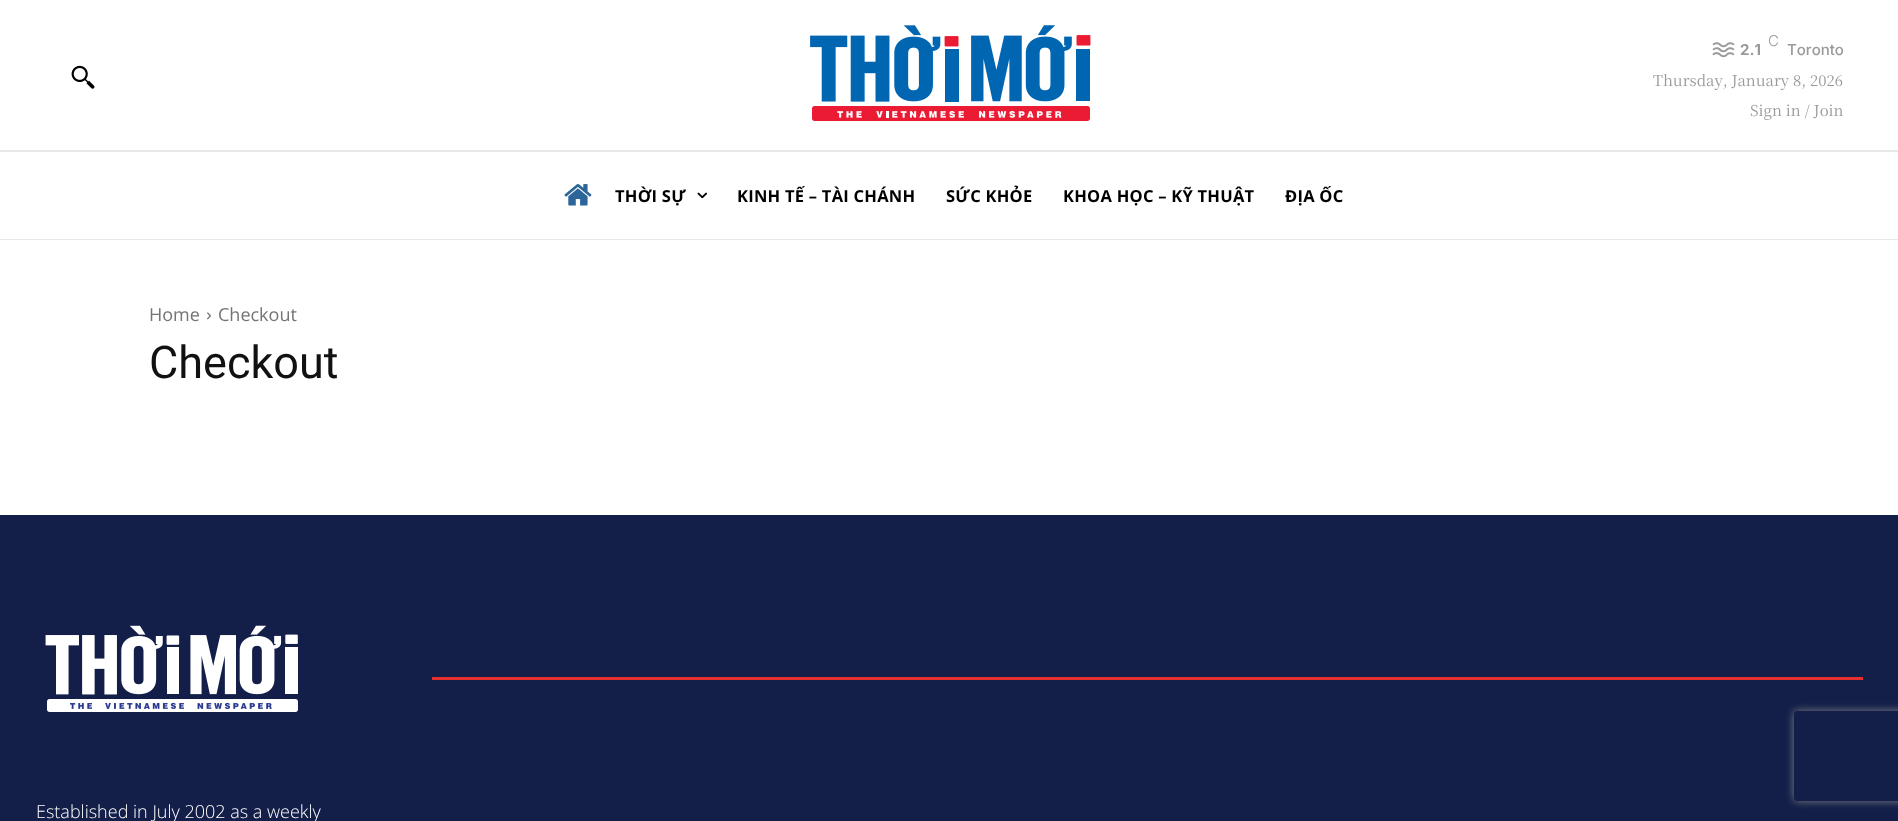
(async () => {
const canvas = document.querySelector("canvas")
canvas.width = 1898
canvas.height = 821
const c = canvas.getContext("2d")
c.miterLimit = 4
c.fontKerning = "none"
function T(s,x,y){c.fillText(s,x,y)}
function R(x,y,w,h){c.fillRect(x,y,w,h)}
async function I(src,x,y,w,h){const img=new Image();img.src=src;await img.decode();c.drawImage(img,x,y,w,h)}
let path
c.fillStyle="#fff"
R(0,0,1898,821)
await I("1.png",71,65,24,24)
await I("2.png",810,25,281,96)
await I("3.png",1712,42,23,16)
c.font="300 15px Inter"
c.fillStyle="#999"
T("C",1768,46)
c.font="bold 15px Inter"
T("2.1",1740,55)
c.font="500 15px Inter"
T("Toronto",1787,55)
c.font="15px Noto Serif JP"
T("Thursday, January 8, 2026",1653,86)
T("Sign in / Join",1750,116)
c.fillStyle="#e8e8e8"
R(0,150,1898,2)
R(0,239,1898,1)
await I("4.png",564,184,28,22)
c.letterSpacing="0.25px"
c.font="bold 16.5px Open Sans"
c.fillStyle="#000"
T("THỜI SỰ",615,202)
await I("5.png",697,192,10,7)
T("KINH TẾ – TÀI CHÁNH",737,202)
T("SỨC KHỎE",946,202)
T("KHOA HỌC – KỸ THUẬT",1063,202)
T("ĐỊA ỐC",1285,202)
c.letterSpacing="0px"
c.font="18px Open Sans"
c.fillStyle="#747474"
T("Home",149,321)
await I("6.png",207,312,4,8)
T("Checkout",218,321)
c.font="45px Roboto"
c.fillStyle="#111"
T("Checkout",149,378)
c.fillStyle="#131f49"
R(0,515,1898,306)
await I("7.png",45,625,253,87)
c.fillStyle="#e52e2e"
R(432,677,1431,3)
c.font="300 18px Open Sans"
c.fillStyle="#fff"
T("Established in July 2002 as a weekly",36,818)
c.save()
path = new Path2D("M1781 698h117v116h-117zm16 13h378c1.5 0 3 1.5 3 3v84c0 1.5-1.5 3-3 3h-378c-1.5 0-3-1.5-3-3v-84c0-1.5 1.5-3 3-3z")
c.clip(path,"evenodd")
c.fillStyle="#808080"
c.filter="blur(4px)"
c.beginPath()
c.roundRect(1794,711,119,90,3)
c.fill()
c.filter="none"
c.restore()
})()
